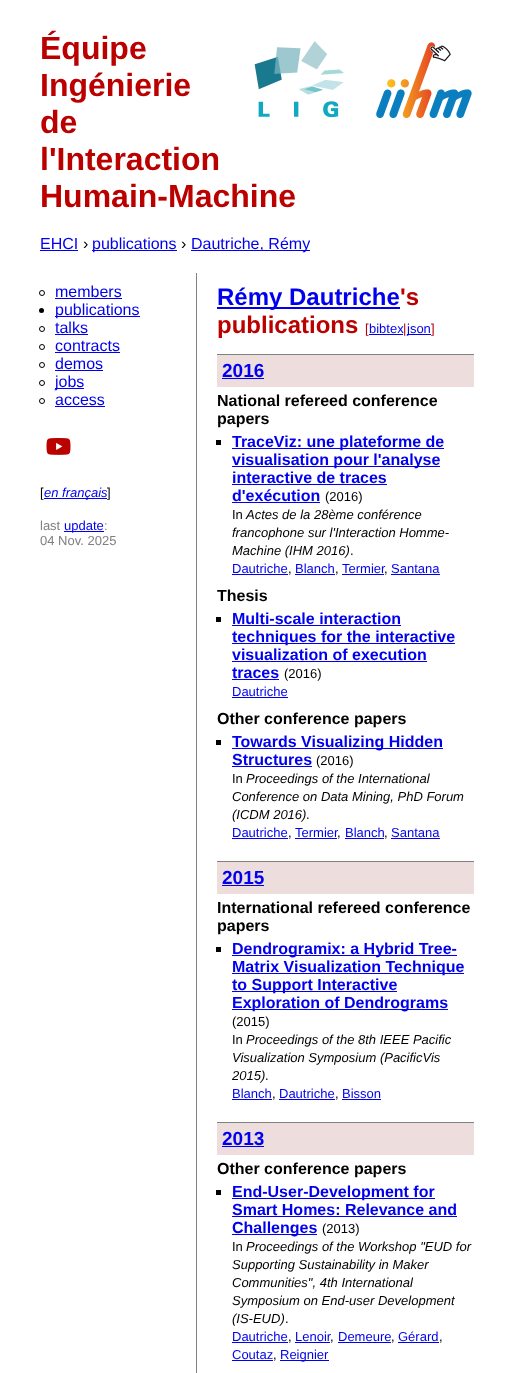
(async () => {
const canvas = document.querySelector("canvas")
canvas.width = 514
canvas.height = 1373
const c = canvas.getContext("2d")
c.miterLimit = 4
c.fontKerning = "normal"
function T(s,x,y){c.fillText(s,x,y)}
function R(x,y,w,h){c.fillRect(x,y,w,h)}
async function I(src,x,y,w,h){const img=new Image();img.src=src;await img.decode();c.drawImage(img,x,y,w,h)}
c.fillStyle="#fff"
R(0,0,514,1373)
c.font="bold 32px Liberation Sans"
c.fillStyle="#b00"
T("Équipe",40,59)
T("Ingénierie",40,96)
T("de",40,133)
T("l'Interaction",40,170)
T("Humain-Machine",40,207)
await I("1.png",254,41,90,77)
await I("2.png",376,42,96,76)
c.font="16px Liberation Sans"
c.fillStyle="#00e"
T("EHCI",40,249)
R(40,250,38,1)
c.fillStyle="#000"
T("›",83,249)
c.fillStyle="#00e"
R(92,250,85,1)
T("publications",92,249)
c.fillStyle="#000"
T("›",181,249)
c.fillStyle="#00e"
R(191,250,119,1)
T("Dautriche, Rémy",191,249)
c.beginPath()
c.arc(42,293,2.5,0,7)
c.strokeStyle="#000"
c.stroke()
T("members",55,297)
R(55,298,67,1)
c.fillStyle="#000"
c.beginPath()
c.arc(41.5,310.5,2.5,0,7)
c.fill()
c.fillStyle="#00e"
R(55,316,85,1)
T("publications",55,315)
c.beginPath()
c.arc(42,329,2.5,0,7)
c.stroke()
T("talks",55,333)
R(55,334,33,1)
c.beginPath()
c.arc(42,347,2.5,0,7)
c.stroke()
T("contracts",55,351)
R(55,352,65,1)
c.beginPath()
c.arc(42,365,2.5,0,7)
c.stroke()
T("demos",55,369)
R(55,370,48,1)
c.beginPath()
c.arc(42,383,2.5,0,7)
c.stroke()
R(55,388,29,1)
T("jobs",55,387)
c.beginPath()
c.arc(42,401,2.5,0,7)
c.stroke()
T("access",55,405)
R(55,406,50,1)
await I("3.png",46,438,25,17)
c.font="13px Liberation Sans"
c.fillStyle="#000"
T("[",40,497)
c.fillStyle="#00e"
R(44,498,63,1)
c.font="italic 13px Liberation Sans"
T("en français",44,497)
c.font="13px Liberation Sans"
c.fillStyle="#000"
T("]",107,497)
c.fillStyle="#808080"
T("last",40,530)
c.fillStyle="#00e"
R(64,531,40,1)
T("update",64,530)
c.fillStyle="#808080"
T(":",104,530)
T("04 Nov. 2025",40,545)
R(196,273,1,1100)
c.fillStyle="#00e"
R(217,307,183,2)
c.font="bold 24px Liberation Sans"
T("Rémy Dautriche",217,305)
c.fillStyle="#b00"
T("'s",400,305)
T("publications",217,333)
c.font="13px Liberation Sans"
T("[",365,333)
c.fillStyle="#00e"
R(369,334,34,1)
T("bibtex",369,333)
c.fillStyle="#b00"
T("|",403,333)
c.fillStyle="#00e"
R(407,334,24,1)
T("json",407,333)
c.fillStyle="#b00"
T("]",431,333)
c.fillStyle="#edd"
R(217,355,257,32)
c.fillStyle="#808080"
R(217,354,257,1)
c.font="bold 19px Liberation Sans"
c.fillStyle="#00e"
T("2016",222,377)
R(222,378,42,1)
c.font="bold 16px Liberation Sans"
c.fillStyle="#000"
T("National refereed conference",217,406)
T("papers",217,424)
R(216,440,5,5)
c.fillStyle="#00e"
R(232,448,212,1)
T("TraceViz: une plateforme de",232,447)
R(232,466,208,1)
T("visualisation pour l'analyse",232,465)
T("interactive de traces",232,483)
R(232,484,155,1)
T("d'exécution",232,501)
R(232,502,88,1)
c.font="13px Liberation Sans"
c.fillStyle="#000"
T("(2016)",325,501)
T("In",232,519)
c.font="italic 13px Liberation Sans"
T("Actes de la 28ème conférence",246,519)
T("francophone sur l'Interaction Homme-",232,537)
T("Machine (IHM 2016)",232,555)
c.font="13px Liberation Sans"
T(".",350,555)
c.fillStyle="#00e"
T("Dautriche",232,573)
c.fillStyle="#000"
T(",",288,573)
c.fillStyle="#00e"
R(232,574,56,1)
T("Blanch",295,573)
c.fillStyle="#000"
T(",",335,573)
c.fillStyle="#00e"
R(295,574,40,1)
T("Termier",342,573)
c.fillStyle="#000"
T(",",384,573)
c.fillStyle="#00e"
R(342,574,42,1)
R(391,574,49,1)
T("Santana",391,573)
c.font="bold 16px Liberation Sans"
c.fillStyle="#000"
T("Thesis",217,601)
R(216,617,5,5)
c.fillStyle="#00e"
T("Multi-scale interaction",232,624)
R(232,625,169,1)
R(232,643,223,1)
T("techniques for the interactive",232,642)
T("visualization of execution",232,660)
R(232,661,195,1)
T("traces",232,678)
R(232,679,47,1)
c.font="13px Liberation Sans"
c.fillStyle="#000"
T("(2016)",284,678)
c.fillStyle="#00e"
T("Dautriche",232,696)
R(232,697,56,1)
c.font="bold 16px Liberation Sans"
c.fillStyle="#000"
T("Other conference papers",217,724)
R(216,740,5,5)
c.fillStyle="#00e"
R(232,748,211,1)
T("Towards Visualizing Hidden",232,747)
T("Structures",232,765)
R(232,766,80,1)
c.font="13px Liberation Sans"
c.fillStyle="#000"
T("(2016)",316,765)
T("In",232,783)
c.font="italic 13px Liberation Sans"
T("Proceedings of the International",246,783)
T("Conference on Data Mining, PhD Forum",232,801)
T("(ICDM 2016)",232,819)
c.font="13px Liberation Sans"
T(".",306,819)
c.fillStyle="#00e"
T("Dautriche",232,837)
c.fillStyle="#000"
T(",",288,837)
c.fillStyle="#00e"
R(232,838,56,1)
T("Termier",295,837)
c.fillStyle="#000"
T(",",337,837)
c.fillStyle="#00e"
R(295,838,42,1)
T("Blanch",345,837)
c.fillStyle="#000"
T(",",384,837)
c.fillStyle="#00e"
R(345,838,39,1)
R(391,838,49,1)
T("Santana",391,837)
c.fillStyle="#edd"
R(217,862,257,32)
c.fillStyle="#808080"
R(217,861,257,1)
c.font="bold 19px Liberation Sans"
c.fillStyle="#00e"
T("2015",222,884)
R(222,885,42,1)
c.font="bold 16px Liberation Sans"
c.fillStyle="#000"
T("International refereed conference",217,913)
T("papers",217,931)
R(216,947,5,5)
c.fillStyle="#00e"
R(232,955,225,1)
T("Dendrogramix: a Hybrid Tree-",232,954)
R(232,973,232,1)
T("Matrix Visualization Technique",232,972)
R(232,991,165,1)
T("to Support Interactive",232,990)
R(232,1009,216,1)
T("Exploration of Dendrograms",232,1008)
c.font="13px Liberation Sans"
c.fillStyle="#000"
T("(2015)",232,1026)
T("In",232,1044)
c.font="italic 13px Liberation Sans"
T("Proceedings of the 8th IEEE Pacific",246,1044)
T("Visualization Symposium (PacificVis",232,1062)
T("2015)",232,1080)
c.font="13px Liberation Sans"
T(".",265,1080)
c.fillStyle="#00e"
T("Blanch",232,1098)
c.fillStyle="#000"
T(",",272,1098)
c.fillStyle="#00e"
R(232,1099,40,1)
T("Dautriche",279,1098)
c.fillStyle="#000"
T(",",335,1098)
c.fillStyle="#00e"
R(279,1099,56,1)
R(342,1099,39,1)
T("Bisson",342,1098)
c.fillStyle="#edd"
R(217,1123,257,32)
c.fillStyle="#808080"
R(217,1122,257,1)
c.font="bold 19px Liberation Sans"
c.fillStyle="#00e"
T("2013",222,1145)
R(222,1146,42,1)
c.font="bold 16px Liberation Sans"
c.fillStyle="#000"
T("Other conference papers",217,1174)
R(216,1190,5,5)
c.fillStyle="#00e"
R(232,1198,203,1)
T("End-User-Development for",232,1197)
T("Smart Homes: Relevance and",232,1215)
R(232,1216,225,1)
R(232,1234,85,1)
T("Challenges",232,1233)
c.font="13px Liberation Sans"
c.fillStyle="#000"
T("(2013)",322,1233)
T("In",232,1251)
c.font="italic 13px Liberation Sans"
T("Proceedings of the Workshop \"EUD for",246,1251)
T("Supporting Sustainability in Maker",232,1269)
T("Communities\", 4th International",232,1287)
T("Symposium on End-user Development",232,1305)
T("(IS-EUD)",232,1323)
c.font="13px Liberation Sans"
T(".",285,1323)
c.fillStyle="#00e"
T("Dautriche",232,1341)
c.fillStyle="#000"
T(",",288,1341)
c.fillStyle="#00e"
R(232,1342,56,1)
T("Lenoir",295,1341)
c.fillStyle="#000"
T(",",330,1341)
c.fillStyle="#00e"
R(295,1342,35,1)
T("Demeure",338,1341)
c.fillStyle="#000"
T(",",391,1341)
c.fillStyle="#00e"
R(338,1342,53,1)
T("Gérard",398,1341)
c.fillStyle="#000"
T(",",439,1341)
c.fillStyle="#00e"
R(398,1342,41,1)
T("Coutaz",232,1359)
c.fillStyle="#000"
T(",",273,1359)
c.fillStyle="#00e"
R(232,1360,41,1)
R(280,1360,49,1)
T("Reignier",280,1359)
})()
